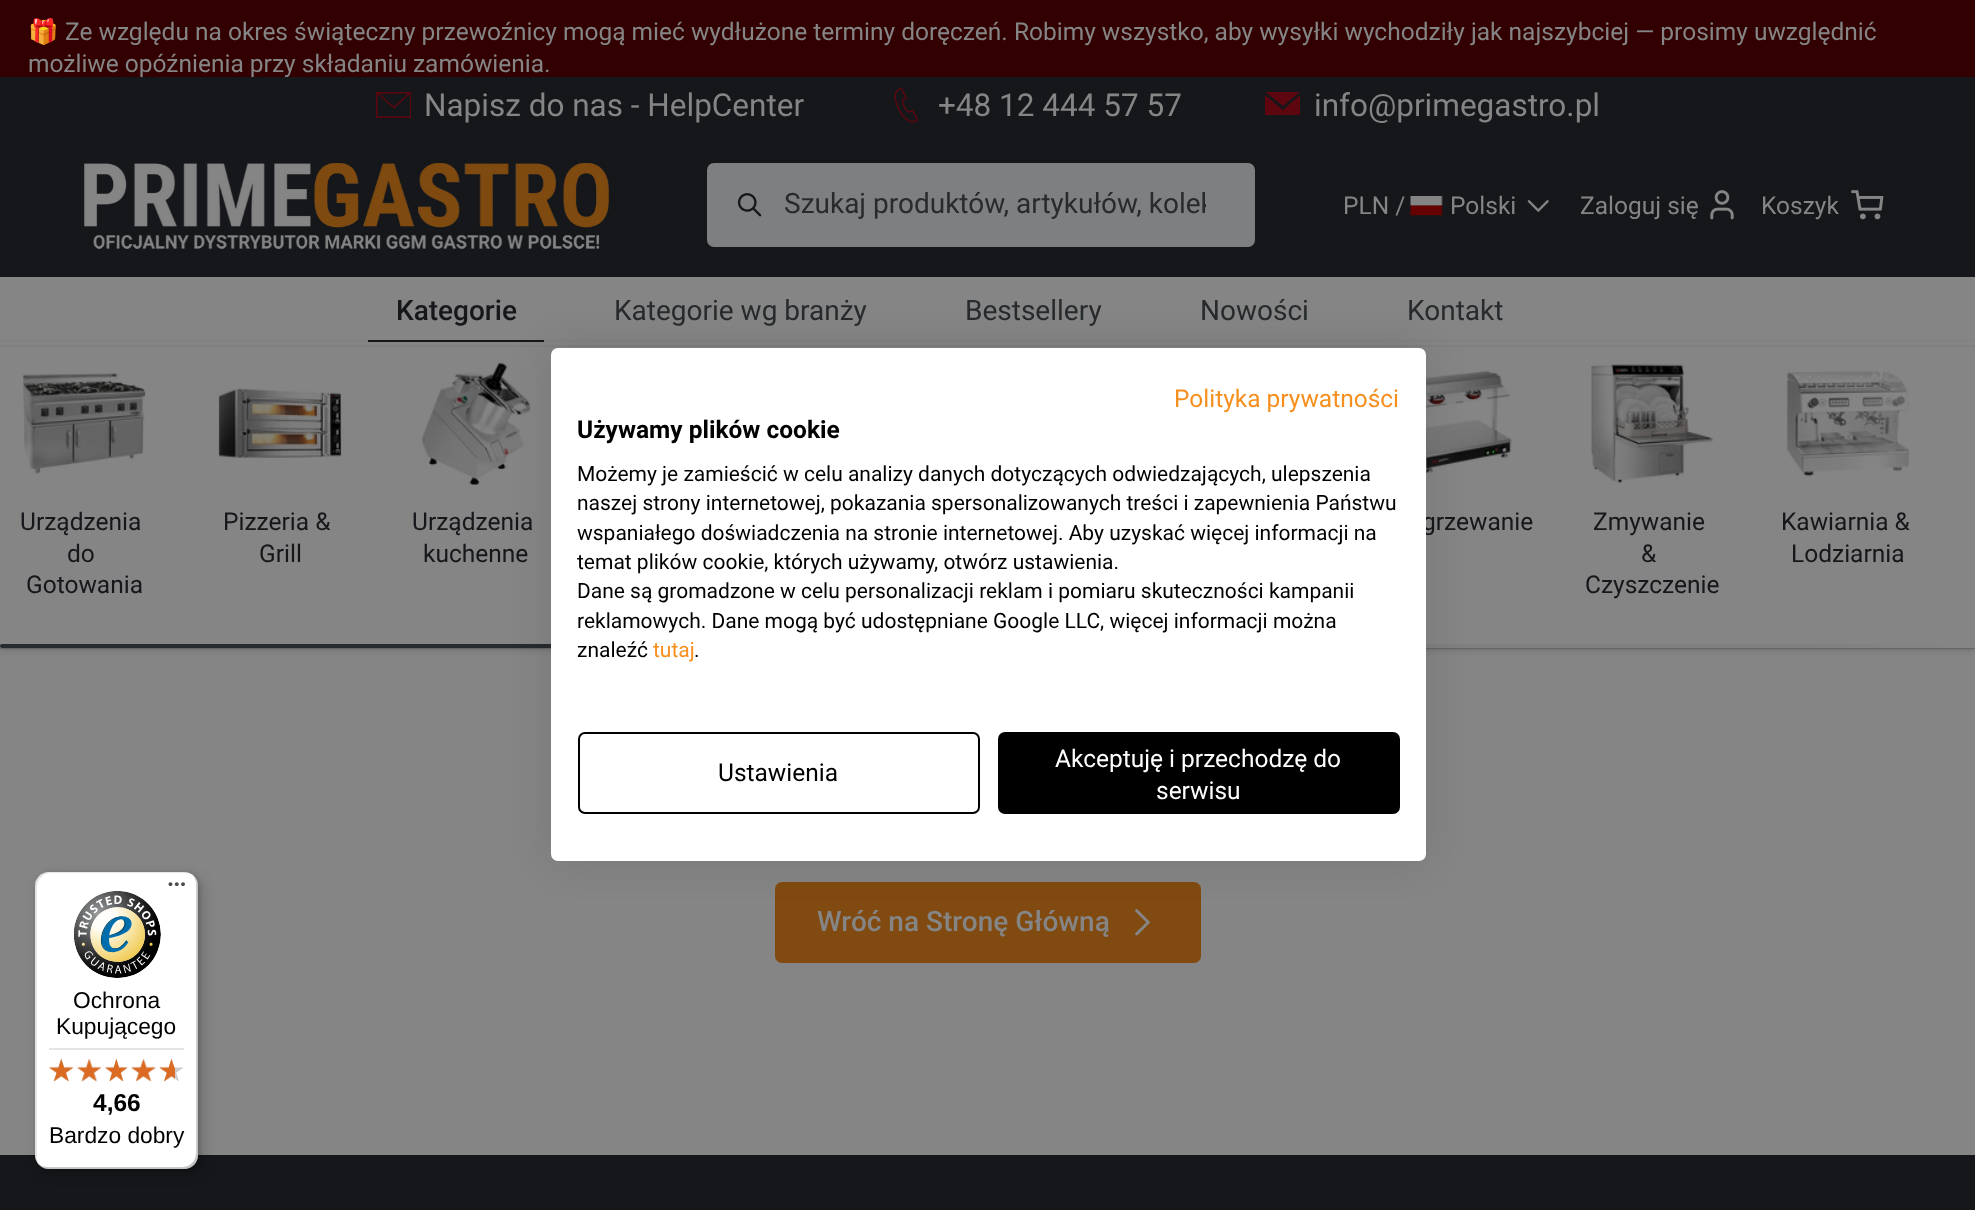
(async () => {
const canvas = document.querySelector("canvas")
canvas.width = 1975
canvas.height = 1210
const c = canvas.getContext("2d")
c.miterLimit = 4
c.fontKerning = "normal"
function T(s,x,y){c.fillText(s,x,y)}
function R(x,y,w,h){c.fillRect(x,y,w,h)}
function Q(x,y,w,h,r){c.beginPath();c.roundRect(x,y,w,h,r);c.fill()}
async function I(src,x,y,w,h){const img=new Image();img.src=src;await img.decode();c.drawImage(img,x,y,w,h)}
let gradient, path
c.fillStyle="#858585"
R(0,0,1975,1210)
c.fillStyle="#320000"
R(0,0,1975,77)
c.font="24.5px Noto Color Emoji"
c.fillStyle="#858585"
T("🎁",28,40)
c.font="24.5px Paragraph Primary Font"
T("Ze względu na okres świąteczny przewoźnicy mogą mieć wydłużone terminy doręczeń. Robimy wszystko, aby wysyłki wychodziły jak najszybciej — prosimy uwzględnić",65,40)
T("możliwe opóźnienia przy składaniu zamówienia.",28,72)
c.fillStyle="#15171b"
R(0,77,1975,200)
c.fillStyle="#5e060f"
path = new Path2D("M411 118h-35v-26h35zm-33.5-24v22.5h32.5v-22.5l-16 14.5zm31-.5h-29.5l15 13z")
c.fill(path)
c.font="31.5px Paragraph Primary Font"
c.fillStyle="#858585"
T("Napisz do nas - HelpCenter",424,116)
await I("1.png",894,88,25,35)
T("+48 12 444 57 57",938,116)
c.fillStyle="#5e060f"
path = new Path2D("M1283 106l17-14h-34.5zm0 4l-18-15v20h35v-20z")
c.fill(path)
c.fillStyle="#858585"
T("info@primegastro.pl",1314,116)
await I("2.png",84,163,525,86)
c.fillStyle="#7e7f80"
Q(707,163,548,84,7)
await I("3.png",737,193,25,24)
c.save()
c.beginPath()
c.rect(784,187,422,34)
c.clip()
c.font="28px Paragraph Primary Font"
c.fillStyle="#282b2d"
T("Szukaj produktów, artykułów, kolek",784,213)
c.restore()
c.font="24.5px Paragraph Primary Font"
c.fillStyle="#858585"
T("PLN /",1343,214)
await I("4.png",1410,196,33,20)
T("Polski",1450,214)
await I("5.png",1527,200,22,12)
T("Zaloguj się",1580,214)
await I("6.png",1710,190,24,30)
T("Koszyk",1761,214)
await I("7.png",1851,190,33,30)
c.fillStyle="#0000004d"
c.filter="blur(3.5px)"
c.beginPath()
c.rect(0,347,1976,301)
c.fill()
c.filter="none"
c.fillStyle="#858585"
R(0,342,1975,3)
c.strokeStyle="#0000001f"
c.lineWidth=2
c.strokeRect(-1,346,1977,302)
c.fillStyle="#7e7f80"
R(0,345,1975,2)
c.font="500 28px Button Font"
c.fillStyle="#15171b"
T("Kategorie",396,320)
R(368,340,176,2)
c.fillStyle="#858585"
R(0,347,1975,301)
await I("13.png",1786,370,124,107)
c.fillStyle="#7e7f80"
Q(0,644,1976,4,2)
gradient = c.createLinearGradient(0,497,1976,497)
gradient.addColorStop(.9,"#85858500")
gradient.addColorStop(1,"#858585")
c.fillStyle = gradient
R(1784,371,191,277)
await I("8.png",22,373,124,101)
c.font="24.5px Paragraph Primary Font"
c.fillStyle="#15171b"
T("Urządzenia",20,530)
T("do",67,562)
T("Gotowania",26,593)
await I("9.png",218,388,124,70)
T("Pizzeria &",223,530)
T("Grill",259,562)
await I("10.png",421,362,110,123)
T("Urządzenia",412,530)
T("kuchenne",423,562)
await I("11.png",1426,370,86,103)
T("grzewanie",1422,530)
await I("12.png",1591,364,122,119)
T("Zmywanie",1593,530)
T("&",1641,562)
T("Czyszczenie",1585,593)
T("Kawiarnia &",1781,530)
T("Lodziarnia",1791,562)
c.fillStyle="#282b2d"
Q(0,644,1341,4,2)
c.font="28px Paragraph Primary Font"
T("Kategorie wg branży",614,320)
T("Bestsellery",965,320)
T("Nowości",1200,320)
T("Kontakt",1407,320)
c.fillStyle="#804a10"
Q(775,882,426,81,7)
await I("14.png",1135,909,15,27)
c.fillStyle="#0000001a"
c.filter="blur(21px)"
c.beginPath()
c.roundRect(551,348,875,513,7)
c.fill()
c.filter="none"
c.fillStyle="#fff"
Q(551,348,875,513,7)
c.font="24.5px Roboto"
c.fillStyle="#f68f1e"
T("Polityka prywatności",1174,407)
c.font="bold 24.5px Roboto"
c.fillStyle="#000"
T("Używamy plików cookie",577,438)
c.font="21px Roboto"
T("Możemy je zamieścić w celu analizy danych dotyczących odwiedzających, ulepszenia",577,481)
T("naszej strony internetowej, pokazania spersonalizowanych treści i zapewnienia Państwu",577,510)
T("wspaniałego doświadczenia na stronie internetowej. Aby uzyskać więcej informacji na",577,540)
T("temat plików cookie, których używamy, otwórz ustawienia.",577,569)
T("Dane są gromadzone w celu personalizacji reklam i pomiaru skuteczności kampanii",577,598)
T("reklamowych. Dane mogą być udostępniane Google LLC, więcej informacji można",577,628)
T("znaleźć",577,657)
c.fillStyle="#f68f1e"
T("tutaj",653,657)
c.fillStyle="#000"
T(".",694,657)
c.beginPath()
c.roundRect(579,733,400,80,6)
c.strokeStyle="#000"
c.stroke()
c.font="24.5px Roboto"
T("Ustawienia",718,781)
c.beginPath()
c.roundRect(999,733,400,80,6)
c.fill()
c.stroke()
c.fillStyle="#fff"
T("Akceptuję i przechodzę do",1055,767)
T("serwisu",1156,799)
c.font="500 28px Button Font"
c.fillStyle="#858585"
T("Wróć na Stronę Główną",817,931)
c.fillStyle="#15171b"
R(0,1155,1975,55)
c.fillStyle="#00000026"
c.filter="blur(7px)"
c.beginPath()
c.roundRect(40,877,163,297,14)
c.fill()
c.filter="none"
c.filter="blur(2px)"
c.beginPath()
c.roundRect(37,873,163,298,14)
c.fill()
c.filter="none"
c.fillStyle="#fff"
Q(35,872,163,297,14)
c.fillStyle="#0000001a"
path = new Path2D("M51 873h135c2 0 5 1 7 2c-3-2-6-3-9-3h-135c-8 0-14 6-14 14v269c0 5 2 9 6 11c-3-2-4-6-4-9v-270c0-7 6-14 14-14z")
c.fill(path)
c.fillStyle="#00000033"
path = new Path2D("M38 1163c2 4 6 6 11 6h135c8 0 14-6 14-14v-269c0-4-2-8-5-10c2 2 3 5 3 8v269c0 8-6 14-14 14h-135c-3 0-7-1-9-4z")
c.fill(path)
c.fillStyle="#32323233"
path = new Path2D("M40 1165c2 3 5 4 9 4h135c8 0 14-6 14-14v-269c0-3-1-6-3-9c1 2 2 5 2 7v270c0 8-7 14-14 14h-135c-3 0-6-1-8-3z")
c.fill(path)
c.fillStyle="#ffffff4d"
path = new Path2D("M40 1165c2 3 5 4 9 4h135c8 0 14-6 14-14v-269c0-4-1-7-4-9c2 2 3 5 3 8v269c0 8-6 14-14 14h-135c-3 0-6-1-8-3z")
c.fill(path)
await I("15.png",168,882,17,4)
await I("16.png",74,891,87,87)
c.font="22.75px Liberation Sans"
c.fillStyle="#000"
T("Ochrona",73,1008)
T("Kupującego",56,1034)
c.fillStyle="#e5e5e5"
R(49,1048,135,2)
await I("22.png",49,1059,24,22)
await I("17.png",49,1058,24,24)
await I("23.png",77,1059,24,23)
await I("18.png",77,1058,25,24)
await I("24.png",105,1059,23,22)
await I("19.png",105,1058,23,24)
await I("25.png",131,1059,25,22)
await I("20.png",131,1058,25,24)
await I("26.png",159,1059,25,22)
await I("21.png",159,1058,16,24)
c.font="bold 24.5px Liberation Sans"
c.fillStyle="#000"
T("4,66",93,1111)
c.font="22.75px Liberation Sans"
T("Bardzo dobry",49,1143)
})()
